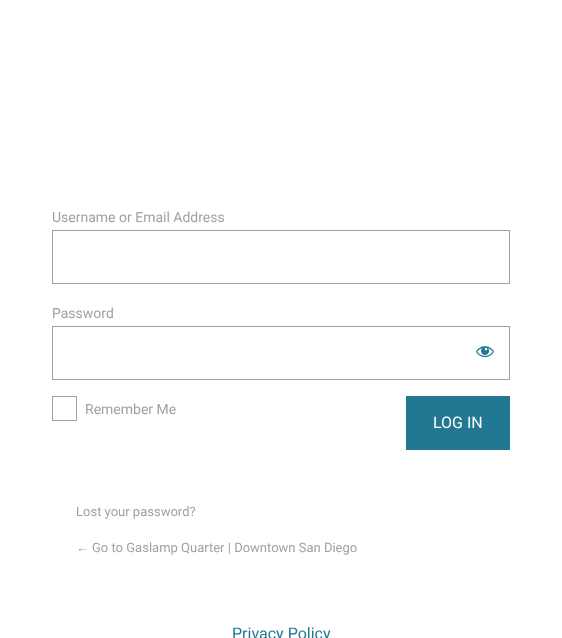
(async () => {
const canvas = document.querySelector("canvas")
canvas.width = 562
canvas.height = 638
const c = canvas.getContext("2d")
c.miterLimit = 4
c.fontKerning = "normal"
function T(s,x,y){c.fillText(s,x,y)}
function R(x,y,w,h){c.fillRect(x,y,w,h)}
async function I(src,x,y,w,h){const img=new Image();img.src=src;await img.decode();c.drawImage(img,x,y,w,h)}
c.fillStyle="#fff"
R(0,0,562,638)
c.font="14px Roboto"
c.fillStyle="#a0a1a0"
T("Username or Email Address",52,222)
c.strokeStyle="#a0a1a0"
c.strokeRect(52.5,230.5,457,53)
T("Password",52,318)
c.strokeRect(52.5,326.5,457,53)
await I("1.png",476,346,18,12)
c.strokeRect(52.5,396.5,24,24)
T("Remember Me",85,414)
c.fillStyle="#227793"
R(406,396,104,54)
c.font="16px Roboto"
c.fillStyle="#fff"
T("LOG IN",433,428)
c.font="13px Roboto"
c.fillStyle="#a0a1a0"
T("Lost your password?",76,516)
c.font="13px Liberation Sans"
T("←",76,552)
c.font="13px Roboto"
T("Go to Gaslamp Quarter | Downtown San Diego",92,552)
c.font="16px Roboto"
c.fillStyle="#227793"
T("Privacy Policy",232,639)
})()
